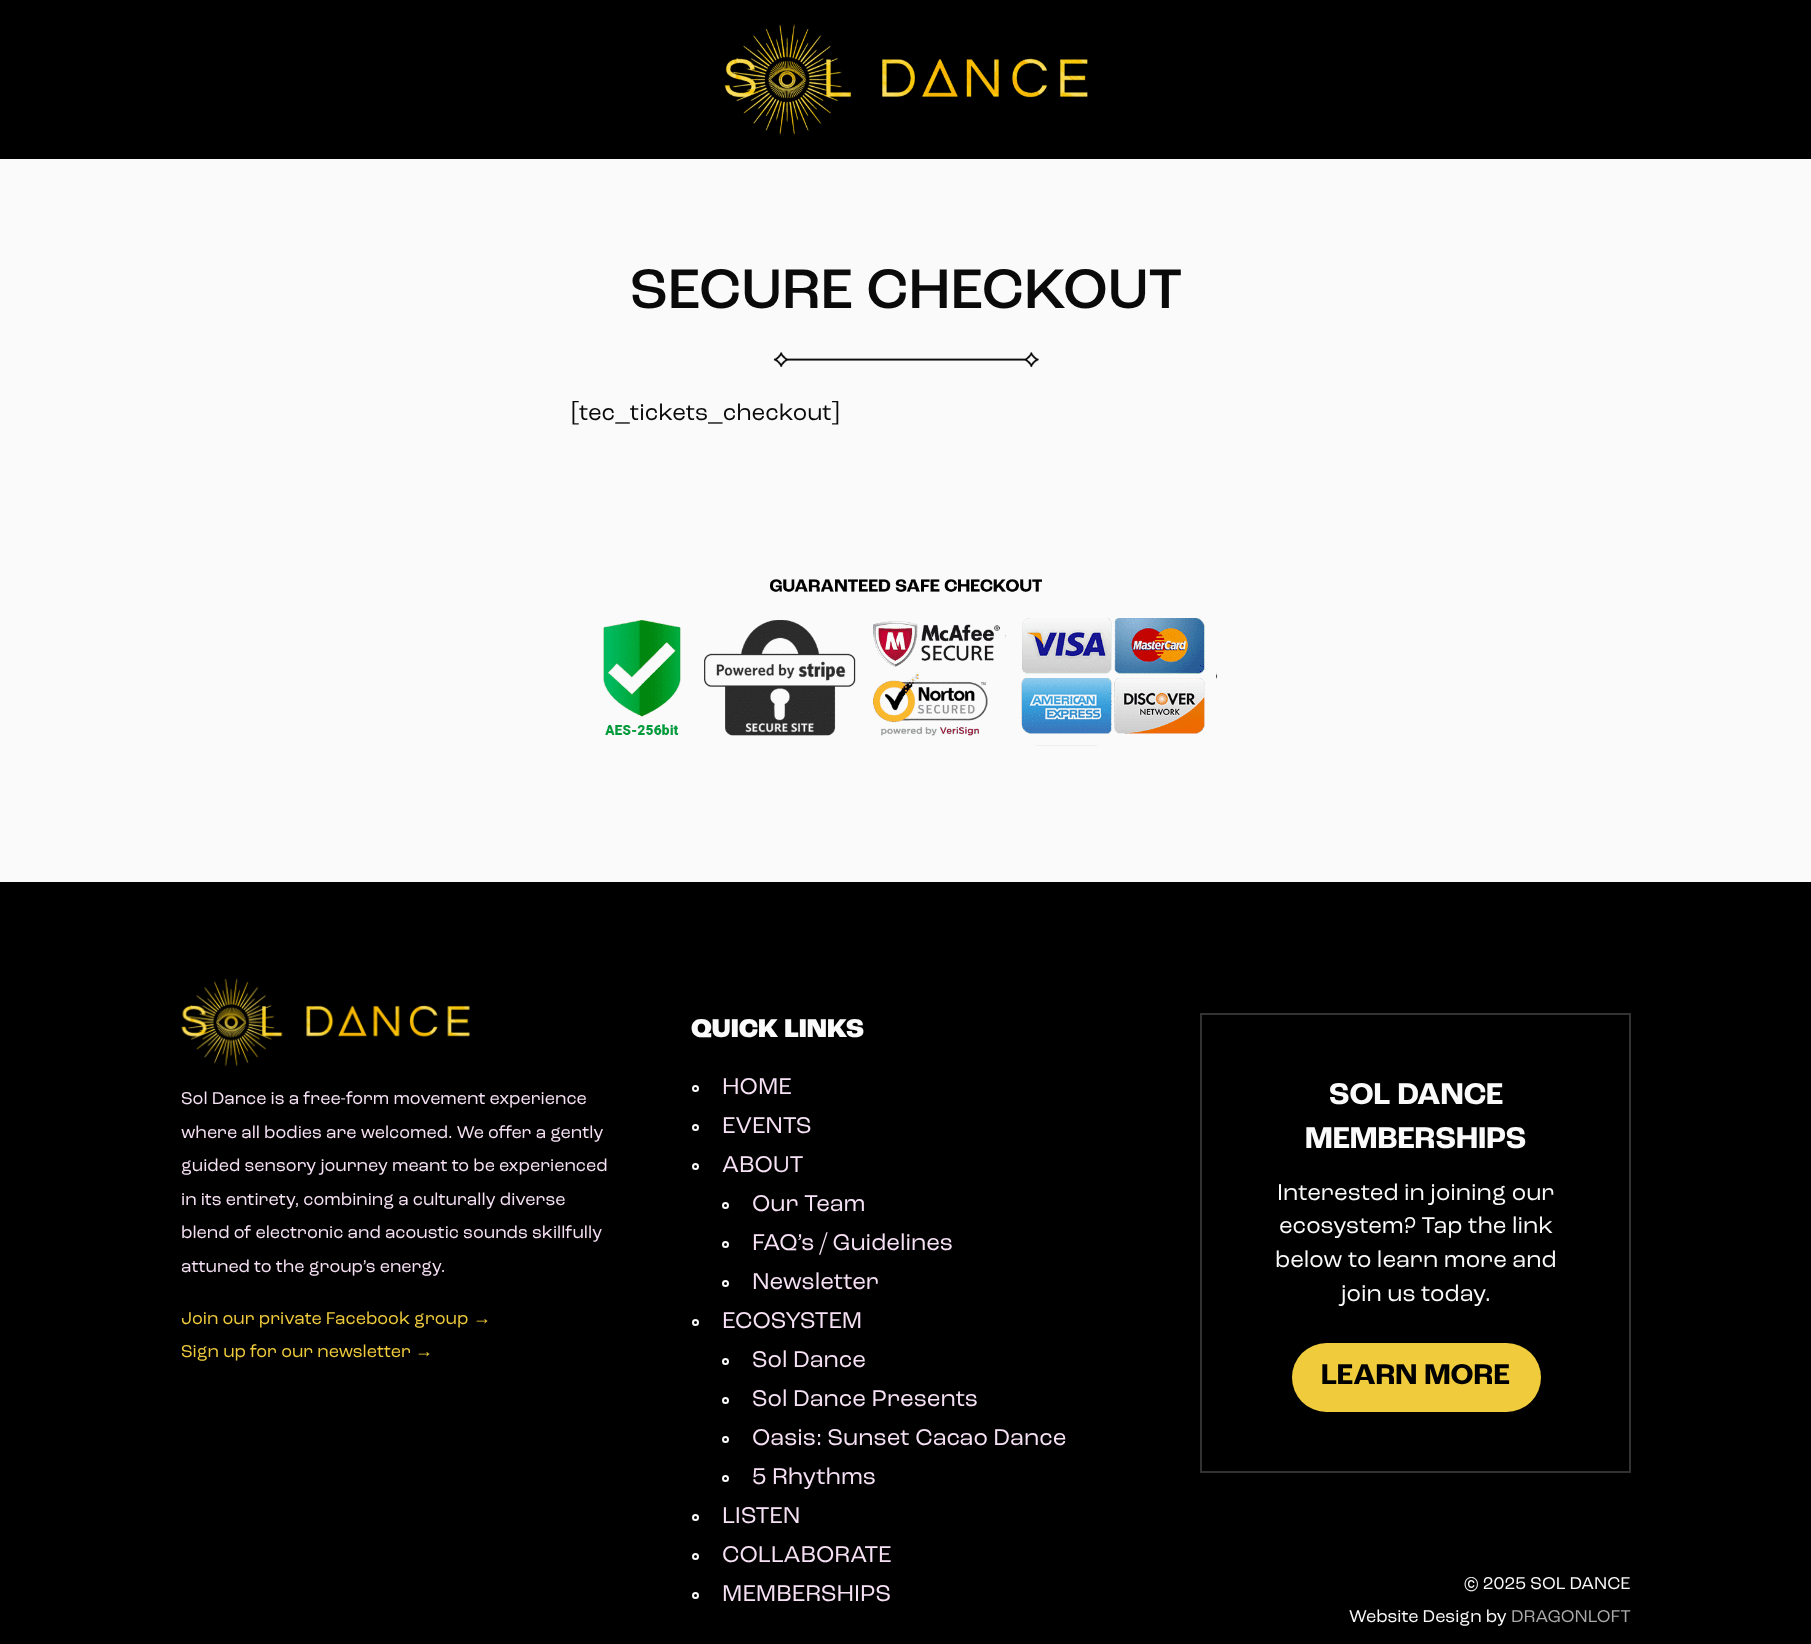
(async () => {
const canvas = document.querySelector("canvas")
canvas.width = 1811
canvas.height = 1644
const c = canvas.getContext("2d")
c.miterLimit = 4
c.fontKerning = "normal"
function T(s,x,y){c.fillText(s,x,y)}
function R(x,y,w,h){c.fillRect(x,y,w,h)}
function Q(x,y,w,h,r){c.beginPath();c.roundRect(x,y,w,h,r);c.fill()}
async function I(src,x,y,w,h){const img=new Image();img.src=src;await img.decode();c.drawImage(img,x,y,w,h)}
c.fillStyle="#000"
R(0,0,1811,1644)
await I("1.png",724,24,364,111)
c.fillStyle="#fafafa"
R(0,159,1811,723)
c.font="500 58.5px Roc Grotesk"
c.fillStyle="#0a0a0a"
T("SECURE CHECKOUT",630,308)
await I("2.png",773,352,266,16)
c.font="24px Roc Grotesk"
T("[tec_tickets_checkout]",571,420)
await I("3.png",603,579,615,167)
await I("4.png",181,978,289,89)
c.font="18px Roc Grotesk"
c.fillStyle="#f7e2f5"
T("Sol Dance is a free-form movement experience",181,1104)
T("where all bodies are welcomed. We offer a gently",181,1138)
T("guided sensory journey meant to be experienced",181,1171)
T("in its entirety, combining a culturally diverse",181,1205)
T("blend of electronic and acoustic sounds skillfully",181,1238)
T("attuned to the group’s energy.",181,1272)
c.fillStyle="#f0cc3c"
T("Join our private Facebook group",181,1324)
c.font="18px Liberation Sans"
T("→",473,1324)
c.font="18px Roc Grotesk"
T("Sign up for our newsletter",181,1357)
c.font="18px Liberation Sans"
T("→",415,1357)
c.font="800 27px Roc Grotesk"
c.fillStyle="#fafafa"
T("QUICK LINKS",691,1037)
c.beginPath()
c.arc(695.5,1088.5,2.5,0,7)
c.strokeStyle="#fafafa"
c.lineWidth=2
c.stroke()
c.font="24px Roc Grotesk"
c.fillStyle="#f7e2f5"
T("HOME",722,1094)
c.beginPath()
c.arc(695.5,1127.5,2.5,0,7)
c.stroke()
T("EVENTS",722,1133)
c.beginPath()
c.arc(695.5,1166.5,2.5,0,7)
c.stroke()
T("ABOUT",722,1172)
c.beginPath()
c.arc(725.5,1205.5,2.5,0,7)
c.stroke()
T("Our Team",752,1211)
c.beginPath()
c.arc(725.5,1244.5,2.5,0,7)
c.stroke()
T("FAQ’s / Guidelines",752,1250)
c.beginPath()
c.arc(725.5,1283.5,2.5,0,7)
c.stroke()
T("Newsletter",752,1289)
c.beginPath()
c.arc(695.5,1322.5,2.5,0,7)
c.stroke()
T("ECOSYSTEM",722,1328)
c.beginPath()
c.arc(725.5,1361.5,2.5,0,7)
c.stroke()
T("Sol Dance",752,1367)
c.beginPath()
c.arc(725.5,1400.5,2.5,0,7)
c.stroke()
T("Sol Dance Presents",752,1406)
c.beginPath()
c.arc(725.5,1439.5,2.5,0,7)
c.stroke()
T("Oasis: Sunset Cacao Dance",752,1445)
c.beginPath()
c.arc(725.5,1478.5,2.5,0,7)
c.stroke()
T("5 Rhythms",752,1484)
c.beginPath()
c.arc(695.5,1517.5,2.5,0,7)
c.stroke()
T("LISTEN",722,1523)
c.beginPath()
c.arc(695.5,1556.5,2.5,0,7)
c.stroke()
T("COLLABORATE",722,1562)
c.beginPath()
c.arc(695.5,1595.5,2.5,0,7)
c.stroke()
T("MEMBERSHIPS",722,1601)
c.strokeStyle="#323232"
c.strokeRect(1201,1014,429,458)
c.font="bold 31.5px Roc Grotesk"
c.fillStyle="#fafafa"
T("SOL DANCE",1329,1104)
T("MEMBERSHIPS",1305,1148)
c.font="24px Roc Grotesk"
T("Interested in joining our",1277,1200)
T("ecosystem? Tap the link",1279,1233)
T("below to learn more and",1275,1267)
T("join us today.",1341,1301)
c.fillStyle="#f0cc3c"
Q(1292,1343,249,69,34.5)
c.font="bold 30px Roc Grotesk"
c.fillStyle="#000"
T("LEARN MORE",1321,1384)
c.font="18px Roc Grotesk"
c.fillStyle="#fafafa"
T("© 2025 SOL DANCE",1464,1589)
T("Website Design by",1349,1622)
c.fillStyle="#aaa"
T("DRAGONLOFT",1511,1622)
})()
